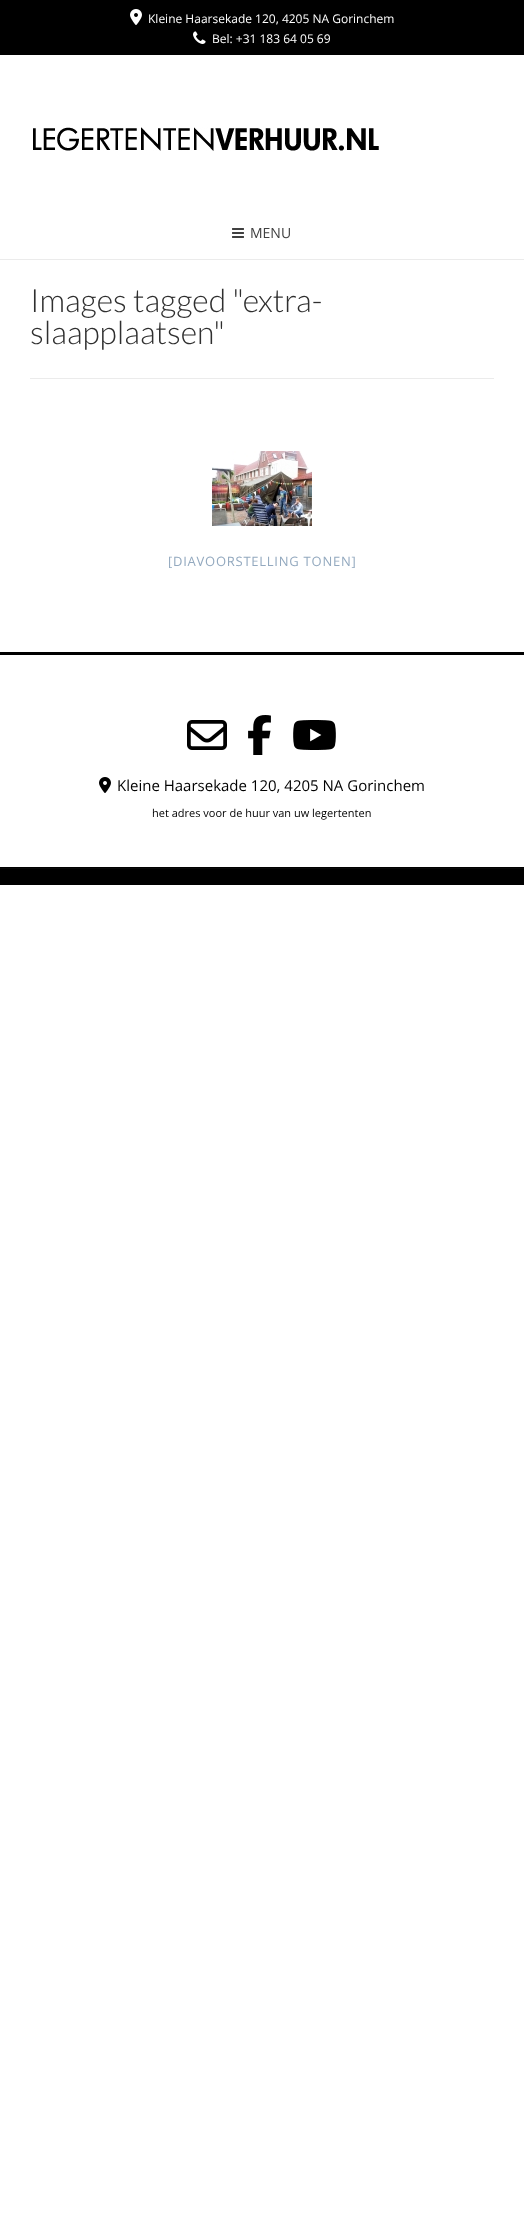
(async () => {
const canvas = document.querySelector("canvas")
canvas.width = 524
canvas.height = 2214
const c = canvas.getContext("2d")
c.miterLimit = 4
c.fontKerning = "normal"
function T(s,x,y){c.fillText(s,x,y)}
function R(x,y,w,h){c.fillRect(x,y,w,h)}
async function I(src,x,y,w,h){const img=new Image();img.src=src;await img.decode();c.drawImage(img,x,y,w,h)}
c.fillStyle="#fff"
R(0,0,524,2214)
c.fillStyle="#ebebeb"
R(0,259,524,1)
c.fillStyle="#000"
R(0,0,524,55)
await I("1.png",130,9,12,16)
c.font="12px Open Sans"
c.fillStyle="#fff"
T("Kleine Haarsekade 120, 4205 NA Gorinchem",148,23)
await I("2.png",193,31,13,13)
T("Bel: +31 183 64 05 69",212,43)
await I("3.png",33,127,346,24)
await I("4.png",232,228,12,10)
c.font="14px Open Sans"
c.fillStyle="#404040"
T("MENU",250,238)
c.fillStyle="#ebebeb"
R(30,378,464,1)
c.font="300 32px Lato"
c.fillStyle="#2f2f2f"
T("Images tagged \"extra-",30,312)
T("slaapplaatsen\"",30,344)
await I("5.png",212,451,100,75)
c.letterSpacing="0.75px"
c.font="13px Open Sans"
c.fillStyle="#93a9bf"
T("[DIAVOORSTELLING TONEN]",168,566)
c.fillStyle="#000"
R(0,652,524,3)
await I("6.png",187,720,40,30)
await I("7.png",248,715,23,40)
await I("8.png",293,720,43,30)
await I("9.png",99,777,12,16)
c.letterSpacing="0px"
c.font="15px Open Sans"
T("Kleine Haarsekade 120, 4205 NA Gorinchem",117,791)
c.font="11px Open Sans"
T("het adres voor de huur van uw legertenten",152,817)
R(0,867,524,18)
c.fillStyle="#080808"
R(0,868,524,1)
})()
